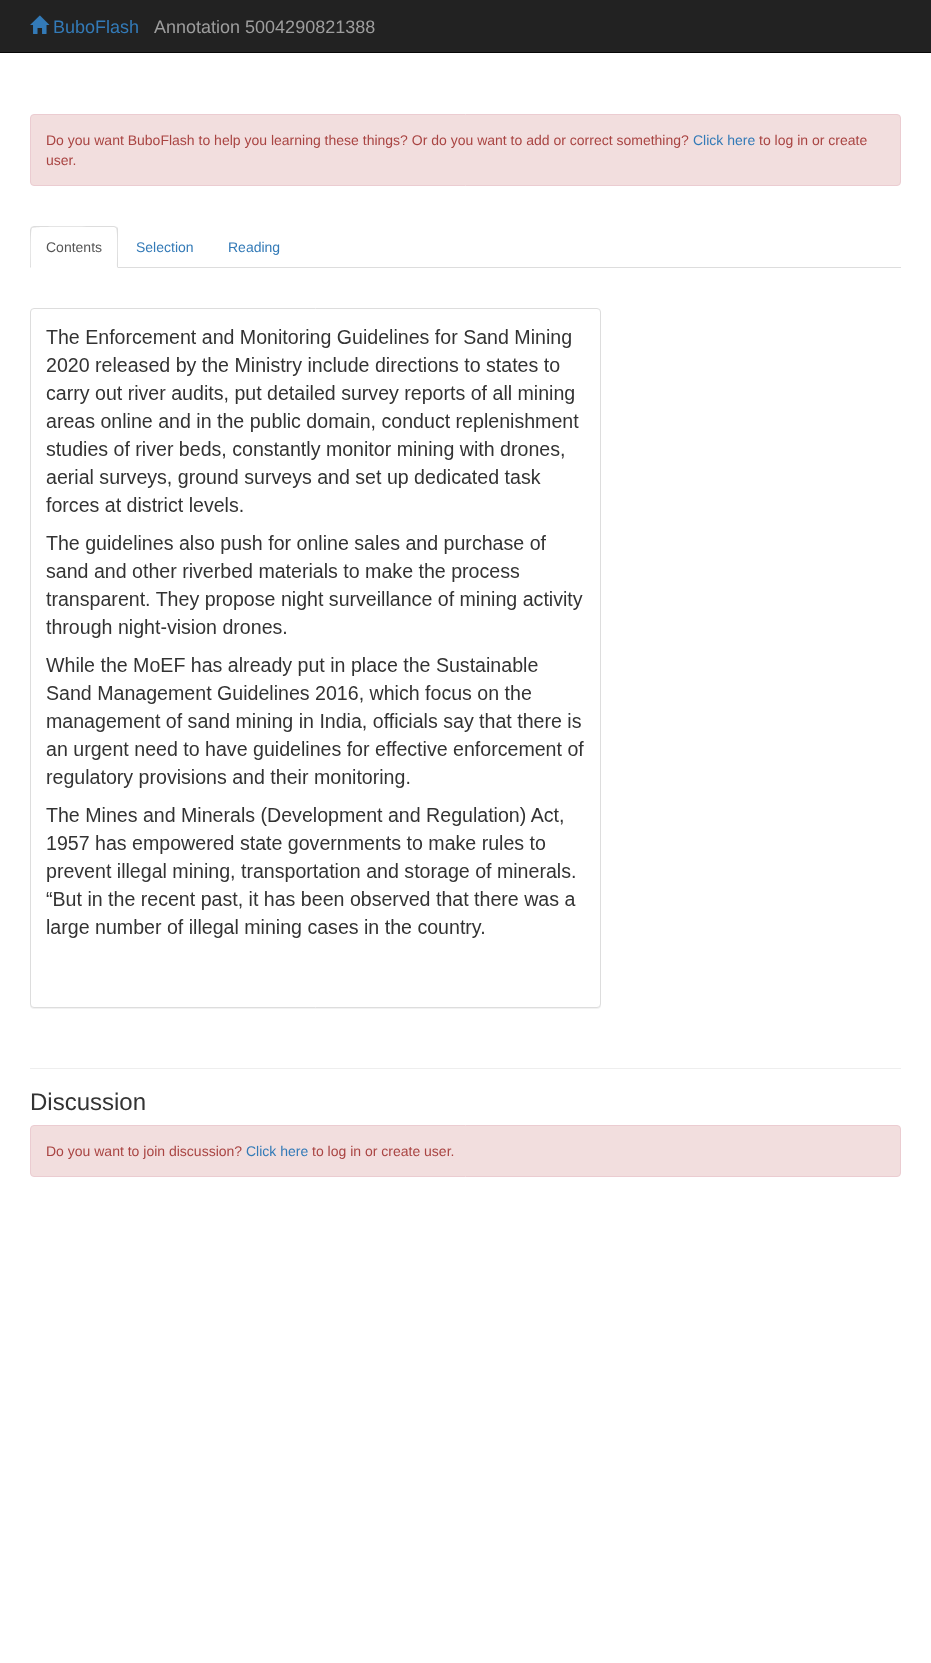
(async () => {
const canvas = document.querySelector("canvas")
canvas.width = 931
canvas.height = 1663
const c = canvas.getContext("2d")
c.miterLimit = 4
c.fontKerning = "normal"
function T(s,x,y){c.fillText(s,x,y)}
function R(x,y,w,h){c.fillRect(x,y,w,h)}
async function I(src,x,y,w,h){const img=new Image();img.src=src;await img.decode();c.drawImage(img,x,y,w,h)}
let path
c.fillStyle="#fff"
R(0,0,931,1663)
c.fillStyle="#222"
R(0,0,931,52)
c.fillStyle="#080808"
R(0,52,931,1)
await I("1.png",30,15,20,19)
c.font="18px Liberation Sans"
c.fillStyle="#337ab7"
T("BuboFlash",53,33)
c.fillStyle="#9d9d9d"
T("Annotation 5004290821388",154,33)
c.fillStyle="#f2dede"
c.beginPath()
c.roundRect(30.5,114.5,870,71,3.5)
c.fill()
c.strokeStyle="#ebccd1"
c.stroke()
c.font="14px Liberation Sans"
c.fillStyle="#a94442"
T("Do you want BuboFlash to help you learning these things? Or do you want to add or correct something?",46,145)
c.fillStyle="#337ab7"
T("Click here",693,145)
c.fillStyle="#a94442"
T("to log in or create",759,145)
T("user.",46,165)
c.fillStyle="#ddd"
R(118,267,783,1)
path = new Path2D("M34 226l-3 1l1 1c2-2 61-1 69-1h13l2 1l1-1l-3-1z")
c.fill(path)
path = new Path2D("M118 268v-38c0-1 0-2-1-3l-1 1c2 2 1 34 1 39z")
c.fill(path)
path = new Path2D("M30 268l1-1c0-5-1-37 1-39l-1-1l-1 3z")
c.fill(path)
c.fillStyle="#555"
T("Contents",46,252)
c.fillStyle="#337ab7"
T("Selection",136,252)
T("Reading",228,252)
c.fillStyle="#0000000d"
c.filter="blur(0.5px)"
c.beginPath()
c.roundRect(30,309,571,700,4)
c.fill()
c.filter="none"
c.fillStyle="#fff"
c.beginPath()
c.roundRect(30.5,308.5,570,699,3.5)
c.fill()
c.strokeStyle="#ddd"
c.stroke()
await I("2.png",46,329,538,609)
c.fillStyle="#eee"
R(30,1068,871,1)
c.font="24px Liberation Sans"
c.fillStyle="#333"
T("Discussion",30,1110)
c.fillStyle="#f2dede"
c.beginPath()
c.roundRect(30.5,1125.5,870,51,3.5)
c.fill()
c.strokeStyle="#ebccd1"
c.stroke()
c.font="14px Liberation Sans"
c.fillStyle="#a94442"
T("Do you want to join discussion?",46,1156)
c.fillStyle="#337ab7"
T("Click here",246,1156)
c.fillStyle="#a94442"
T("to log in or create user.",312,1156)
})()
